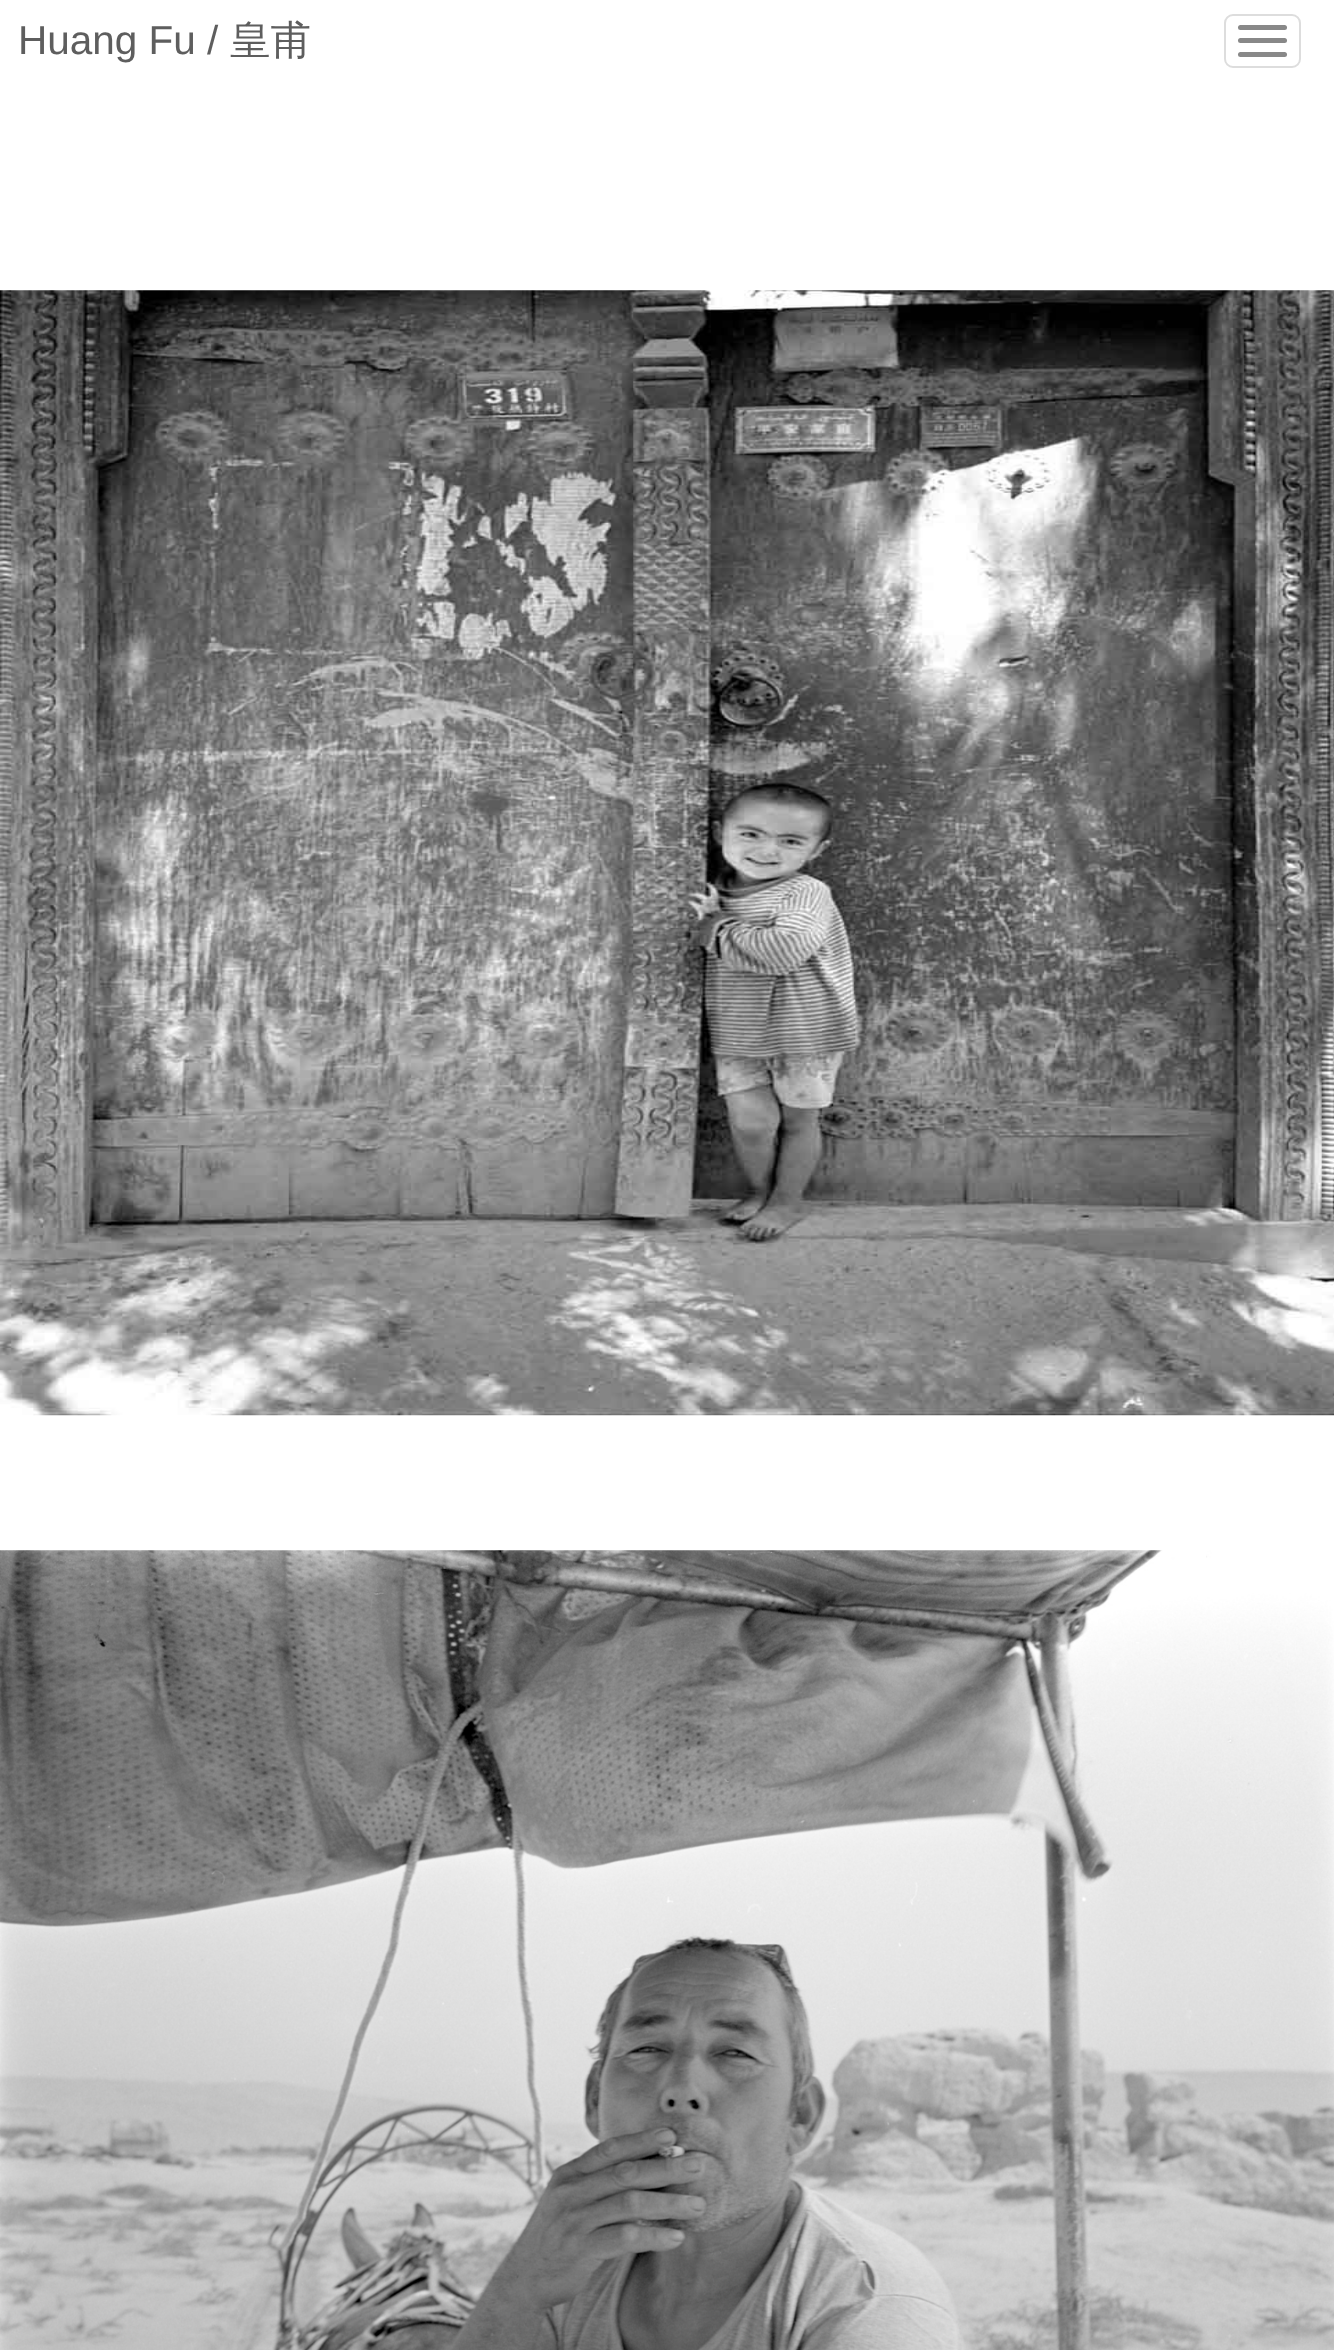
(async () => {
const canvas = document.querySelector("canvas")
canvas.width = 1334
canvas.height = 2350
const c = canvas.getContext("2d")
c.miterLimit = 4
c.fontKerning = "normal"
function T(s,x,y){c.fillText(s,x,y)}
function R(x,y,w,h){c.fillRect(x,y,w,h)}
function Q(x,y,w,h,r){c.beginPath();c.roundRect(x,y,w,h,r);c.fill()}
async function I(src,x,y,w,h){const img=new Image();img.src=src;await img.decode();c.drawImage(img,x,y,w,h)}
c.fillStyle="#fff"
R(0,0,1334,2350)
c.font="40.5px Liberation Sans"
c.fillStyle="#5e5e5e"
T("Huang Fu /",18,54)
c.font="500 40.5px WenQuanYi Zen Hei"
T("皇甫",230,54)
c.beginPath()
c.roundRect(1225,15,75,52,8)
c.strokeStyle="#ddd"
c.lineWidth=2
c.stroke()
c.fillStyle="#888"
Q(1238,25,49,5,2.5)
Q(1238,38,49,5,2.5)
Q(1238,52,49,5,2.5)
await I("1.png",0,290,1334,1126)
await I("2.png",0,1550,1334,800)
})()
